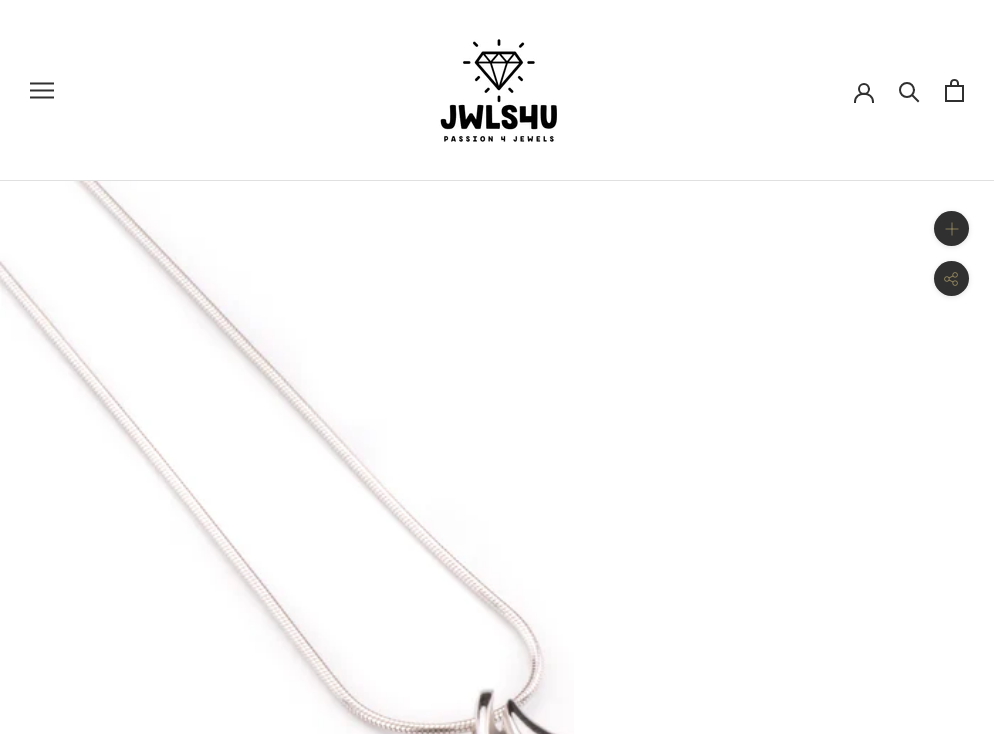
(async () => {
const canvas = document.querySelector("canvas")
canvas.width = 994
canvas.height = 734
const c = canvas.getContext("2d")
c.miterLimit = 4
c.fontKerning = "normal"
function R(x,y,w,h){c.fillRect(x,y,w,h)}
async function I(src,x,y,w,h){const img=new Image();img.src=src;await img.decode();c.drawImage(img,x,y,w,h)}
let path
c.fillStyle="#fff"
R(0,0,994,734)
c.fillStyle="#e0e0e0"
R(0,180,994,1)
await I("1.png",30,82,24,17)
await I("2.png",439,39,118,103)
path = new Path2D("M855 102c0-11 18-11 18 0")
c.strokeStyle="#303030"
c.lineWidth=2
c.lineCap="square"
c.stroke(path)
c.beginPath()
c.arc(864,89,5,0,7)
c.stroke()
path = new Path2D("M918 101l-5.5-5.5")
c.stroke(path)
c.beginPath()
c.arc(907,90,7,0,7)
c.stroke()
await I("3.png",945,79,19,23)
await I("4.png",0,181,574,553)
c.fillStyle="#36363626"
c.filter="blur(2.5px)"
c.beginPath()
c.roundRect(934,212,35,35,17.5)
c.fill()
c.filter="none"
c.fillStyle="#303030"
c.beginPath()
c.arc(951.5,228.5,17.5,0,7)
c.fill()
path = new Path2D("M952 223v12")
c.strokeStyle="#93865e"
c.lineWidth=0.9
c.stroke(path)
path = new Path2D("M946 229h12")
c.strokeStyle="#f5db8b80"
c.stroke(path)
c.fillStyle="#36363626"
c.filter="blur(2.5px)"
c.beginPath()
c.roundRect(934,262,35,35,17.5)
c.fill()
c.filter="none"
c.fillStyle="#303030"
c.beginPath()
c.arc(951.5,278.5,17.5,0,7)
c.fill()
await I("5.png",944,272,14,14)
})()
